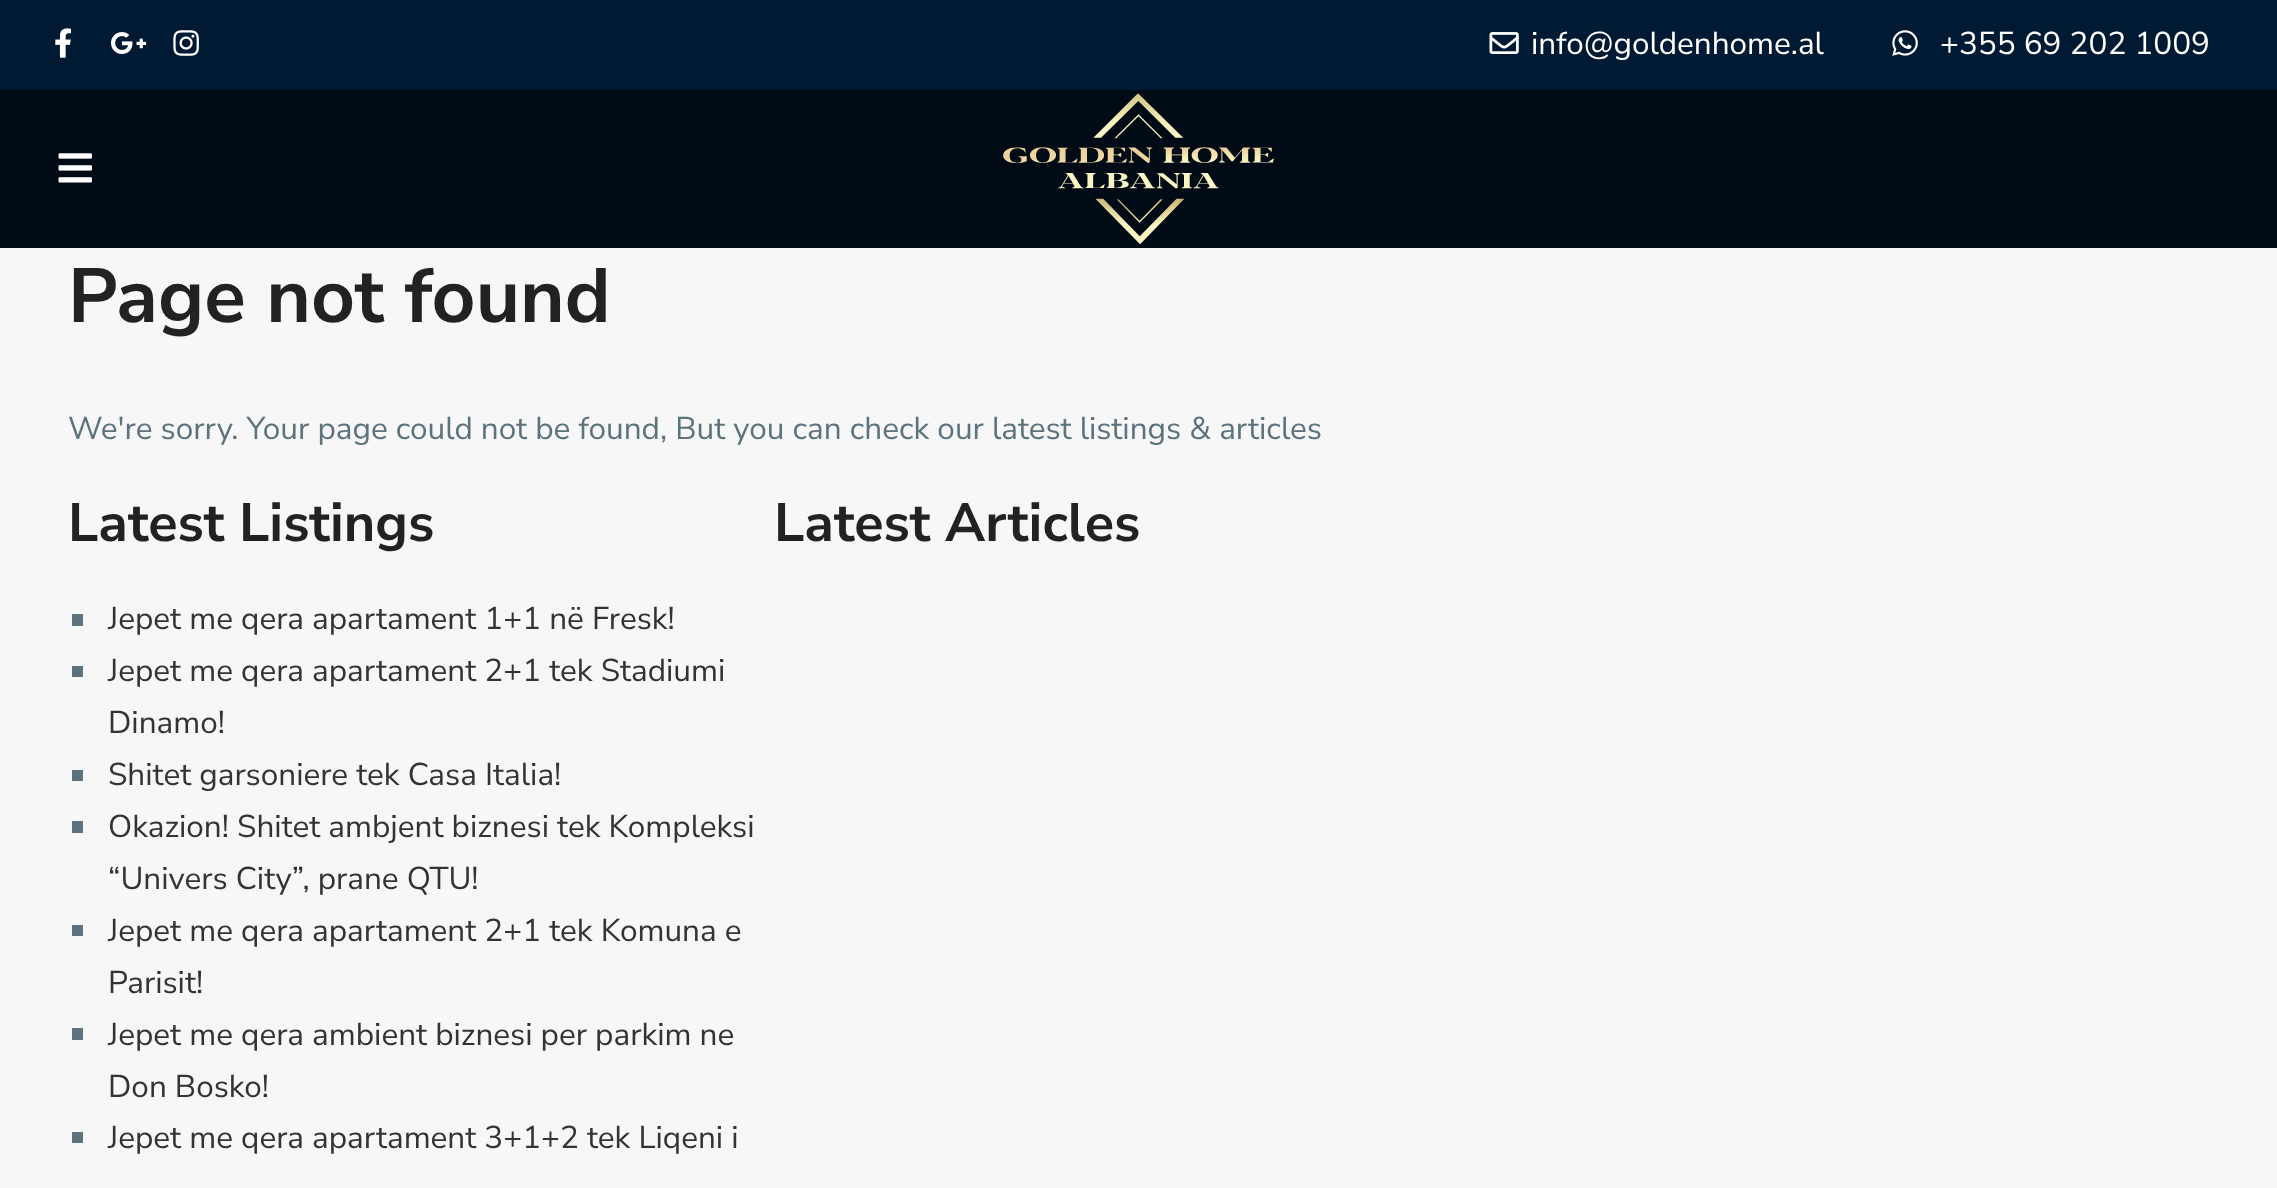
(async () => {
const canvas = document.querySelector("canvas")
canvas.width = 2277
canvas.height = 1188
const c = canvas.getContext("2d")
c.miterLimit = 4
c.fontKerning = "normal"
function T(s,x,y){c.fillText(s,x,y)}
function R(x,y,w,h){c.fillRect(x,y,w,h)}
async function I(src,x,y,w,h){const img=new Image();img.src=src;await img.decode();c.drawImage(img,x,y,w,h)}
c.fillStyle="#f7f7f7"
R(0,0,2277,1188)
c.fillStyle="#001a33"
R(0,0,2277,90)
await I("1.png",55,28,16,30)
await I("2.png",111,32,36,22)
await I("3.png",173,30,26,26)
await I("4.png",1489,32,30,22)
c.font="31.5px Nunito Sans"
c.fillStyle="#fff"
T("info@goldenhome.al",1531,54)
await I("5.png",1892,30,26,26)
T("+355 69 202 1009",1940,54)
c.fillStyle="#000b15"
R(0,90,2277,158)
await I("6.png",58,153,34,30)
await I("7.png",1003,93,271,152)
c.font="bold 76.5px Nunito Sans"
c.fillStyle="#222"
T("Page not found",68,322)
c.font="31.5px Nunito Sans"
c.fillStyle="#5c727d"
T("We're sorry. Your page could not be found, But you can check our latest listings & articles",68,439)
c.font="bold 54px Nunito Sans"
c.fillStyle="#222"
T("Latest Listings",68,541)
c.fillStyle="#5c727d"
R(72,614,11,12)
c.font="31.5px Nunito Sans"
c.fillStyle="#333"
T("Jepet me qera apartament 1+1 në Fresk!",108,629)
c.fillStyle="#5c727d"
R(72,666,11,11)
c.fillStyle="#333"
T("Jepet me qera apartament 2+1 tek Stadiumi",108,681)
T("Dinamo!",108,733)
c.fillStyle="#5c727d"
R(72,770,11,11)
c.fillStyle="#333"
T("Shitet garsoniere tek Casa Italia!",108,785)
c.fillStyle="#5c727d"
R(72,821,11,12)
c.fillStyle="#333"
T("Okazion! Shitet ambjent biznesi tek Kompleksi",108,837)
T("“Univers City”, prane QTU!",108,889)
c.fillStyle="#5c727d"
R(72,925,11,11)
c.fillStyle="#333"
T("Jepet me qera apartament 2+1 tek Komuna e",108,941)
T("Parisit!",108,993)
c.fillStyle="#5c727d"
R(72,1028,11,12)
c.fillStyle="#333"
T("Jepet me qera ambient biznesi per parkim ne",108,1045)
T("Don Bosko!",108,1097)
c.fillStyle="#5c727d"
R(72,1132,11,11)
c.fillStyle="#333"
T("Jepet me qera apartament 3+1+2 tek Liqeni i",108,1148)
c.font="bold 54px Nunito Sans"
c.fillStyle="#222"
T("Latest Articles",774,541)
})()
